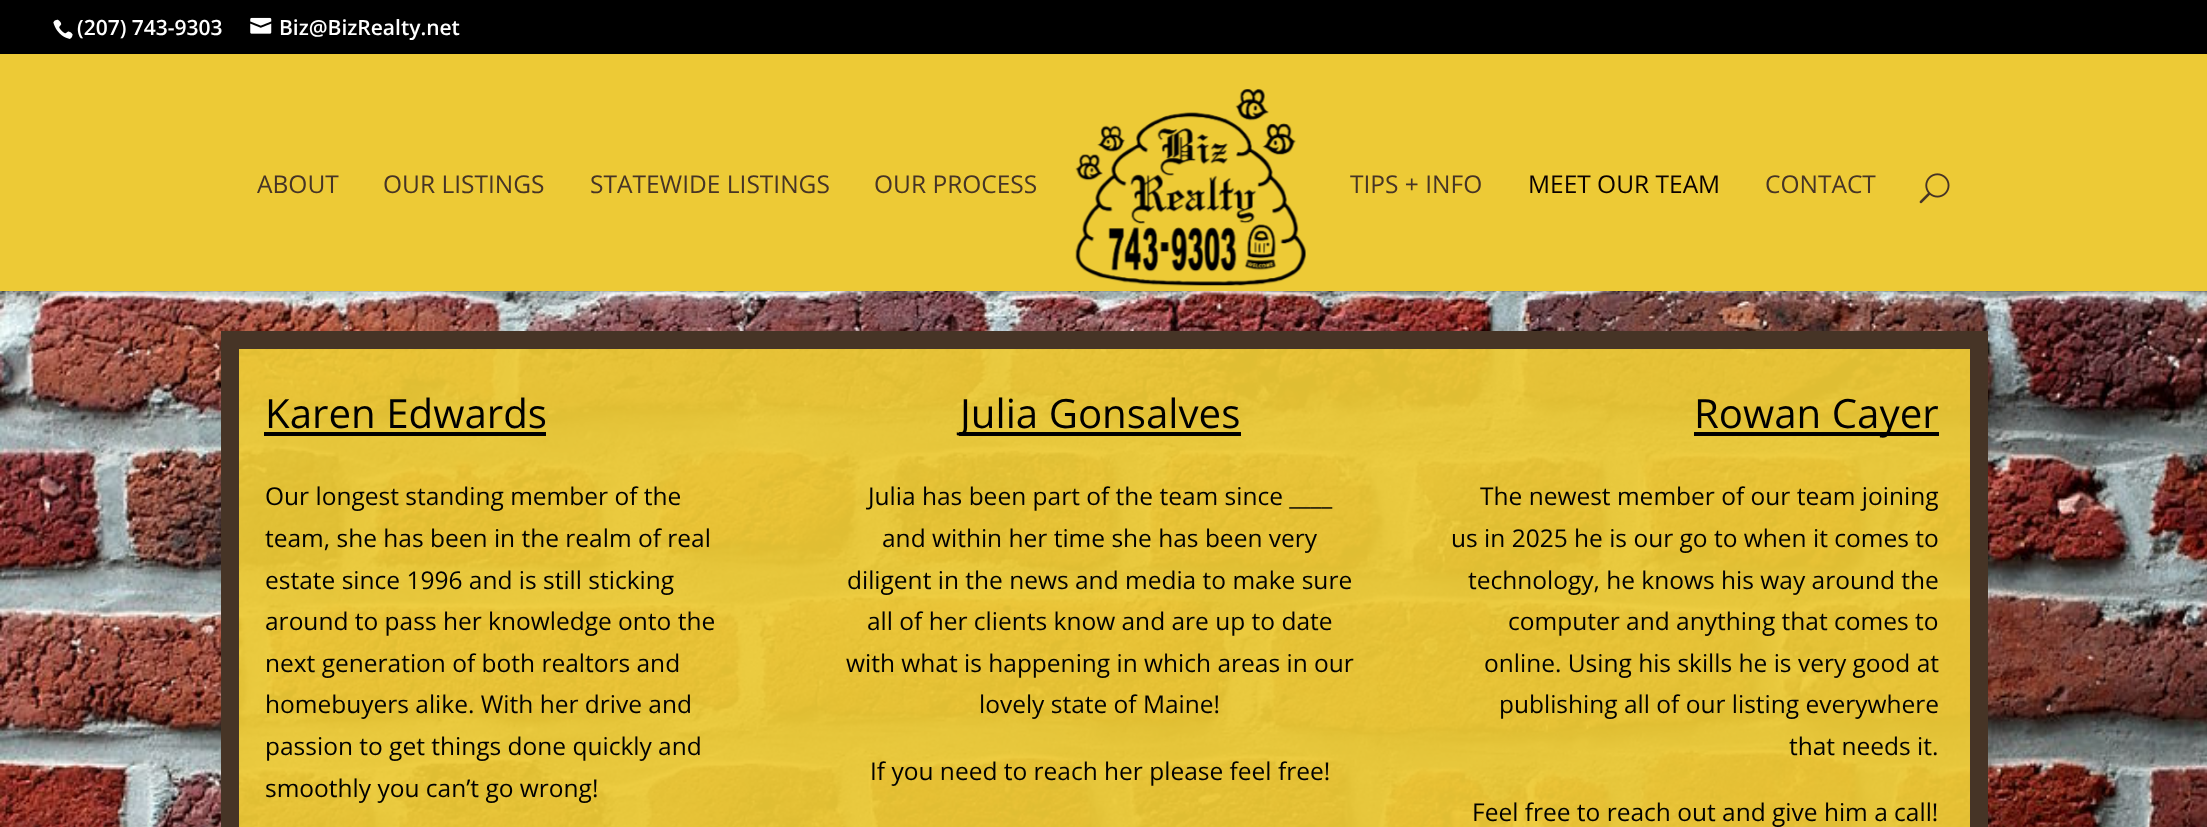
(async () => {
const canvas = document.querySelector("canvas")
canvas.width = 2207
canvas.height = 827
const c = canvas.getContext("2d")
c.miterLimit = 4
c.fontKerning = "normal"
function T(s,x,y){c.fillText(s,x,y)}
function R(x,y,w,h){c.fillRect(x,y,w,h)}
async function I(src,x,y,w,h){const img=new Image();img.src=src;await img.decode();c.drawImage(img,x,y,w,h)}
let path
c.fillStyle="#fff"
R(0,0,2207,827)
c.fillStyle="#000"
R(0,0,2207,54)
await I("1.png",53,19,20,20)
c.font="600 21px Open Sans"
c.fillStyle="#fff"
T("(207) 743-9303",77,35)
await I("2.png",250,17,22,17)
T("Biz@BizRealty.net",279,35)
await I("5.png",0,291,2207,536)
c.fillStyle="#0000001a"
path = new Path2D("M0 290v2h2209v-236h-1v234z")
c.fill(path)
c.fillStyle="#edca36"
R(0,54,2207,237)
c.font="24.5px Open Sans"
c.fillStyle="#463426"
T("ABOUT",257,193)
T("OUR LISTINGS",383,193)
T("STATEWIDE LISTINGS",590,193)
T("OUR PROCESS",874,193)
await I("3.png",1075,89,231,197)
T("TIPS + INFO",1350,193)
c.fillStyle="#0a0000"
T("MEET OUR TEAM",1528,193)
c.fillStyle="#463426"
T("CONTACT",1765,193)
await I("4.png",1919,173,31,31)
c.fillStyle="#edca36f0"
c.beginPath()
c.rect(230,340,1749,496)
c.fill()
c.strokeStyle="#463426"
c.lineWidth=18
c.stroke()
c.font="40.25px Open Sans"
c.fillStyle="#000"
T("Karen Edwards",265,428)
R(264,432,282,4)
c.font="24.5px Open Sans"
T("Our longest standing member of the",265,505)
T("team, she has been in the realm of real",265,547)
T("estate since 1996 and is still sticking",265,589)
T("around to pass her knowledge onto the",265,630)
T("next generation of both realtors and",265,672)
T("homebuyers alike. With her drive and",265,713)
T("passion to get things done quickly and",265,755)
T("smoothly you can’t go wrong!",265,797)
R(959,432,282,4)
c.font="40.25px Open Sans"
T("Julia Gonsalves",960,428)
c.font="24.5px Open Sans"
T("Julia has been part of the team since ____",868,505)
T("and within her time she has been very",882,547)
T("diligent in the news and media to make sure",847,589)
T("all of her clients know and are up to date",867,630)
T("with what is happening in which areas in our",846,672)
T("lovely state of Maine!",979,713)
T("If you need to reach her please feel free!",870,780)
R(1694,432,245,4)
c.font="40.25px Open Sans"
T("Rowan Cayer",1694,428)
c.font="24.5px Open Sans"
T("The newest member of our team joining",1480,505)
T("us in 2025 he is our go to when it comes to",1451,547)
T("technology, he knows his way around the",1468,589)
T("computer and anything that comes to",1508,630)
T("online. Using his skills he is very good at",1484,672)
T("publishing all of our listing everywhere",1499,713)
T("that needs it.",1789,755)
T("Feel free to reach out and give him a call!",1472,821)
})()
